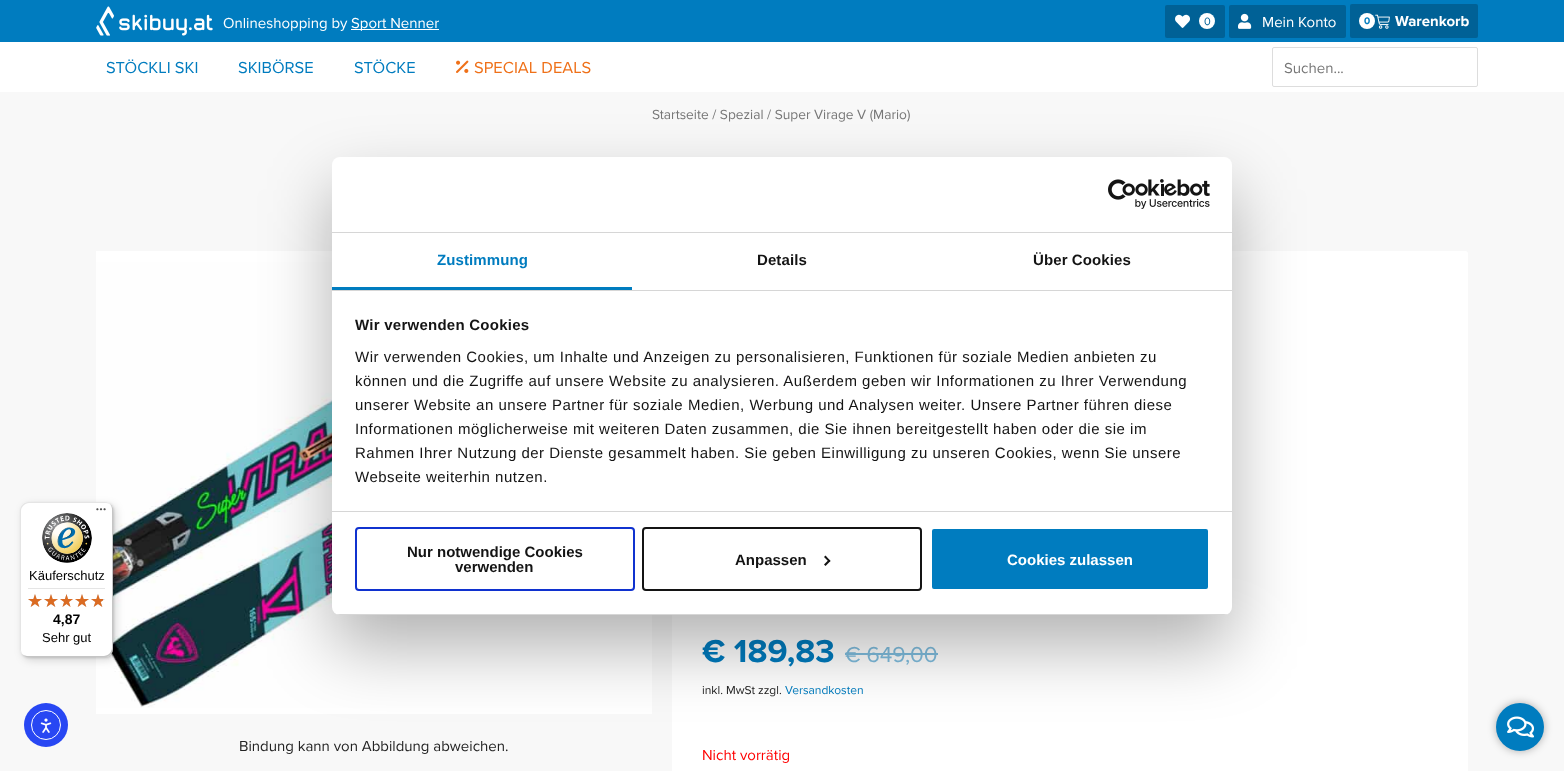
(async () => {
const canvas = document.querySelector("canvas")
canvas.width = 1564
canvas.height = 771
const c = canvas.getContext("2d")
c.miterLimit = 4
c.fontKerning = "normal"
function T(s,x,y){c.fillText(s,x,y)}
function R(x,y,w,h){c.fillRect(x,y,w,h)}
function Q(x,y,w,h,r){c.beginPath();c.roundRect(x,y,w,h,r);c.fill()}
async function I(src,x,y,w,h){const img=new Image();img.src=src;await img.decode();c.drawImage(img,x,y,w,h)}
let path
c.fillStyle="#f8f8f8"
R(0,0,1564,771)
c.fillStyle="#007cbf"
R(0,0,1564,42)
await I("1.png",96,6,117,30)
c.font="15px Proxima Nova"
c.fillStyle="#fff"
T("Onlineshopping by",223,28)
R(351,29,88,1)
T("Sport Nenner",351,28)
c.fillStyle="#006196"
Q(1165,5,60,33,2)
await I("2.png",1175,14,15,14)
c.fillStyle="#fff"
c.beginPath()
c.arc(1207,21,8,0,7)
c.fill()
c.font="11px Proxima Nova"
c.fillStyle="#006196"
T("0",1204,25)
Q(1229,5,117,33,2)
await I("3.png",1238,13,14,16)
c.font="15px Proxima Nova"
c.fillStyle="#fff"
T("Mein Konto",1262,27)
c.fillStyle="#006196"
Q(1350,4,128,34,2)
c.fillStyle="#fff"
c.beginPath()
c.arc(1367,21,8,0,7)
c.fill()
c.font="bold 10px Proxima Nova"
c.fillStyle="#007cbf"
T("0",1364,24)
await I("4.png",1375,14,15,15)
c.font="bold 15px Proxima Nova"
c.fillStyle="#fff"
T("Warenkorb",1395,26)
R(0,42,1564,50)
c.font="16.5px Proxima Nova"
c.fillStyle="#007cbf"
T("STÖCKLI SKI",106,73)
T("SKIBÖRSE",238,73)
T("STÖCKE",354,73)
await I("5.png",456,60,13,13)
c.fillStyle="#ef7018"
T("SPECIAL DEALS",474,73)
c.beginPath()
c.roundRect(1272.5,47.5,205,39,1.5)
c.strokeStyle="#ddd"
c.stroke()
c.font="15px Proxima Nova"
c.fillStyle="#777"
T("Suchen...",1284,73)
c.font="13.75px Proxima Nova"
T("Startseite / Spezial / Super Virage V (Mario)",652,119)
c.fillStyle="#fff"
R(96,251,556,463)
await I("6.png",96,262,556,446)
c.font="15px Proxima Nova"
c.fillStyle="#232323"
T("Bindung kann von Abbildung abweichen.",239,751)
c.fillStyle="#fff"
Q(672,251,796,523,3)
c.font="bold 33px Proxima Nova"
c.fillStyle="#007cbf"
T("€ 189,83",702,662)
c.font="22.5px Proxima Nova"
c.fillStyle="#80bedf"
T("€ 649,00",845,662)
R(845,653,93,2)
c.font="12px Proxima Nova"
c.fillStyle="#232323"
T("inkl. MwSt zzgl.",702,694)
c.fillStyle="#007cbf"
T("Versandkosten",785,694)
c.font="15px Proxima Nova"
c.fillStyle="#f00"
T("Nicht vorrätig",702,760)
c.fillStyle="#0000004d"
c.filter="blur(4px)"
c.beginPath()
c.roundRect(1496,703,48,48,24)
c.fill()
c.filter="none"
c.fillStyle="#007cbf"
c.beginPath()
c.arc(1520,727,24,0,7)
c.fill()
await I("7.png",1507,716,27,22)
c.fillStyle="#0000004d"
c.filter="blur(34px)"
c.beginPath()
c.roundRect(332,189,900,458,8)
c.fill()
c.filter="none"
c.fillStyle="#fff"
Q(332,157,900,458,8)
c.fillStyle="#d6d6d6"
R(332,232,900,1)
await I("8.png",1108,179,102,30)
R(332,290,900,1)
c.fillStyle="#007cbf"
R(332,287,300,3)
c.letterSpacing="0.1px"
c.font="bold 15px Liberation Sans"
T("Zustimmung",437,265)
c.fillStyle="#141414"
T("Details",757,265)
T("Über Cookies",1033,265)
c.fillStyle="#d6d6d6"
R(332,511,900,1)
c.letterSpacing="0.25px"
c.fillStyle="#141414"
T("Wir verwenden Cookies",355,330)
c.letterSpacing="0.5px"
c.font="15px Liberation Sans"
T("Wir verwenden Cookies, um Inhalte und Anzeigen zu personalisieren, Funktionen für soziale Medien anbieten zu",355,362)
T("können und die Zugriffe auf unsere Website zu analysieren. Außerdem geben wir Informationen zu Ihrer Verwendung",355,386)
T("unserer Website an unsere Partner für soziale Medien, Werbung und Analysen weiter. Unsere Partner führen diese",355,410)
T("Informationen möglicherweise mit weiteren Daten zusammen, die Sie ihnen bereitgestellt haben oder die sie im",355,434)
T("Rahmen Ihrer Nutzung der Dienste gesammelt haben. Sie geben Einwilligung zu unseren Cookies, wenn Sie unsere",355,458)
T("Webseite weiterhin nutzen.",355,482)
c.save()
c.beginPath()
c.roundRect(332,157,900,458,8)
c.clip()
c.fillStyle="#d6d6d6"
R(332,614,900,1)
c.restore()
c.beginPath()
c.roundRect(356,528,278,62,3)
c.strokeStyle="#1032cf"
c.lineWidth=2
c.stroke()
c.letterSpacing="0px"
c.font="bold 15px Liberation Sans"
T("Nur notwendige Cookies",407,557)
T("verwenden",455,572)
c.beginPath()
c.roundRect(643,528,278,62,3)
c.strokeStyle="#141414"
c.stroke()
T("Anpassen",735,565)
path = new Path2D("M825.5 555.5l5 5.5l-1.5 1l-5-5z")
c.fill(path)
path = new Path2D("M829 559.5l1.5 1.5l-5 5l-1.5-1.5z")
c.fill(path)
c.fillStyle="#007cbf"
c.beginPath()
c.roundRect(931,528,278,62,3)
c.fill()
c.strokeStyle="#fff"
c.stroke()
c.fillStyle="#fff"
T("Cookies zulassen",1007,565)
c.fillStyle="#00000026"
c.filter="blur(4px)"
c.beginPath()
c.roundRect(23,505,93,155,8)
c.fill()
c.filter="none"
c.filter="blur(1px)"
c.beginPath()
c.roundRect(21,503,93,155,8)
c.fill()
c.filter="none"
c.fillStyle="#fff"
Q(20,502,93,155,8)
c.fillStyle="#e5e5e5"
path = new Path2D("M29 503h77c2 0 4 1 6 3c-2-2-4-4-7-4h-77c-4 0-8 4-8 8v139c0 3 2 5 4 7c-2-2-3-4-3-6v-139c0-4 4-8 8-8z")
c.fill(path)
c.fillStyle="#00000033"
path = new Path2D("M21 653c2 2 4 4 7 4h77c4 0 8-4 8-8v-139c0-3-2-5-4-7c2 2 3 4 3 6v139c0 4-4 8-8 8h-77c-2 0-4-1-6-3z")
c.fill(path)
c.fillStyle="#32323233"
path = new Path2D("M22 654c1 2 4 3 6 3h77c4 0 8-4 8-8v-139c0-2-1-5-3-6c1 1 2 3 2 5v139c0 5-3 8-8 8h-77c-2 0-4-1-5-2z")
c.fill(path)
c.fillStyle="#ffffff4d"
path = new Path2D("M112 510c0-5-3-8-8-8h1c4 0 8 4 8 8v139c0 4-4 8-8 8h-77c-4 0-8-4-8-8v-1c0 5 3 8 8 8h76c5 0 8-3 8-8z")
c.fill(path)
await I("9.png",96,508,10,3)
await I("10.png",42,513,50,50)
c.font="13px Liberation Sans"
c.fillStyle="#000"
T("Käuferschutz",29,580)
c.fillStyle="#e5e5e5"
R(28,588,77,1)
await I("11.png",28,594,14,13)
await I("11.png",44,594,14,13)
await I("12.png",60,594,13,13)
await I("11.png",75,594,14,13)
await I("11.png",91,594,14,13)
await I("13.png",28,594,14,13)
await I("13.png",44,594,14,13)
await I("14.png",60,594,13,13)
await I("13.png",75,594,14,13)
await I("15.png",91,594,12,13)
c.font="bold 14px Liberation Sans"
c.fillStyle="#000"
T("4,87",53,624)
c.font="13px Liberation Sans"
T("Sehr gut",42,642)
c.fillStyle="#2847f3"
c.beginPath()
c.arc(46,725,22,0,7)
c.fill()
c.beginPath()
c.arc(46,725,14.5,0,7)
c.lineWidth=1
c.stroke()
await I("16.png",40,718,12,15)
})()
